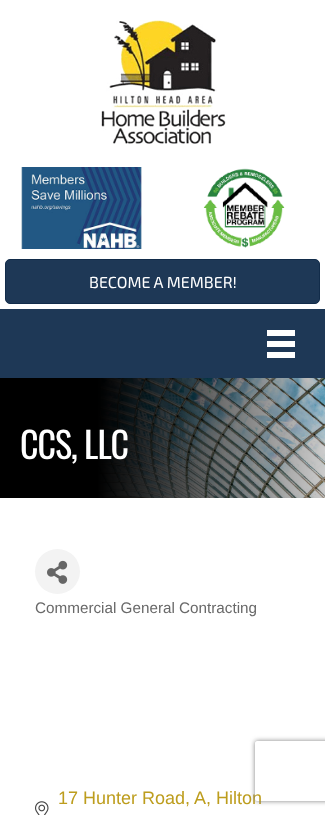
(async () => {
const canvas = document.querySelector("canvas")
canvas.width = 325
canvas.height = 815
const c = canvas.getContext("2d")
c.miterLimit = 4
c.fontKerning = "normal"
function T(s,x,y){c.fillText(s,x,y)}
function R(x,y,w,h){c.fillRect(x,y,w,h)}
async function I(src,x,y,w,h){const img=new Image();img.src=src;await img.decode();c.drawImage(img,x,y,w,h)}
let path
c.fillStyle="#fff"
R(0,0,325,815)
await I("1.png",101,20,125,124)
await I("2.png",21,167,121,82)
await I("3.png",203,168,82,80)
c.fillStyle="#1e3856"
c.beginPath()
c.roundRect(5.5,259.5,314,44,4.5)
c.fill()
c.strokeStyle="#122c4a"
c.stroke()
c.font="16px 'Exo 2'"
c.fillStyle="#fff"
T("BECOME A MEMBER!",89,288)
c.fillStyle="#1e3856"
R(0,309,325,69)
c.fillStyle="#fff"
R(267,330,28,6)
R(267,341,28,6)
R(267,352,28,6)
await I("4.png",0,378,325,120)
c.letterSpacing="-1px"
c.font="36px Oswald"
T("CCS, LLC",20,459)
c.fillStyle="#f3f3f3"
c.beginPath()
c.arc(57.5,571.5,22.5,0,7)
c.fill()
await I("5.png",47,560,21,24)
c.letterSpacing="0px"
c.font="15.25px Liberation Sans"
c.fillStyle="#696969"
T("Commercial General Contracting",35,613)
await I("6.png",35,801,14,14)
c.font="18px Liberation Sans"
c.fillStyle="#bd9d1d"
T("17 Hunter Road,",58,804)
T("A, Hilton",194,804)
c.save()
path = new Path2D("M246 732h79v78h-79zm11 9h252c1 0 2 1 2 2v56c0 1-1 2-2 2h-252c-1 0-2-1-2-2v-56c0-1 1-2 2-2z")
c.clip(path,"evenodd")
c.fillStyle="#808080"
c.filter="blur(2.5px)"
c.beginPath()
c.roundRect(255,741,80,60,2)
c.fill()
c.filter="none"
c.restore()
})()
